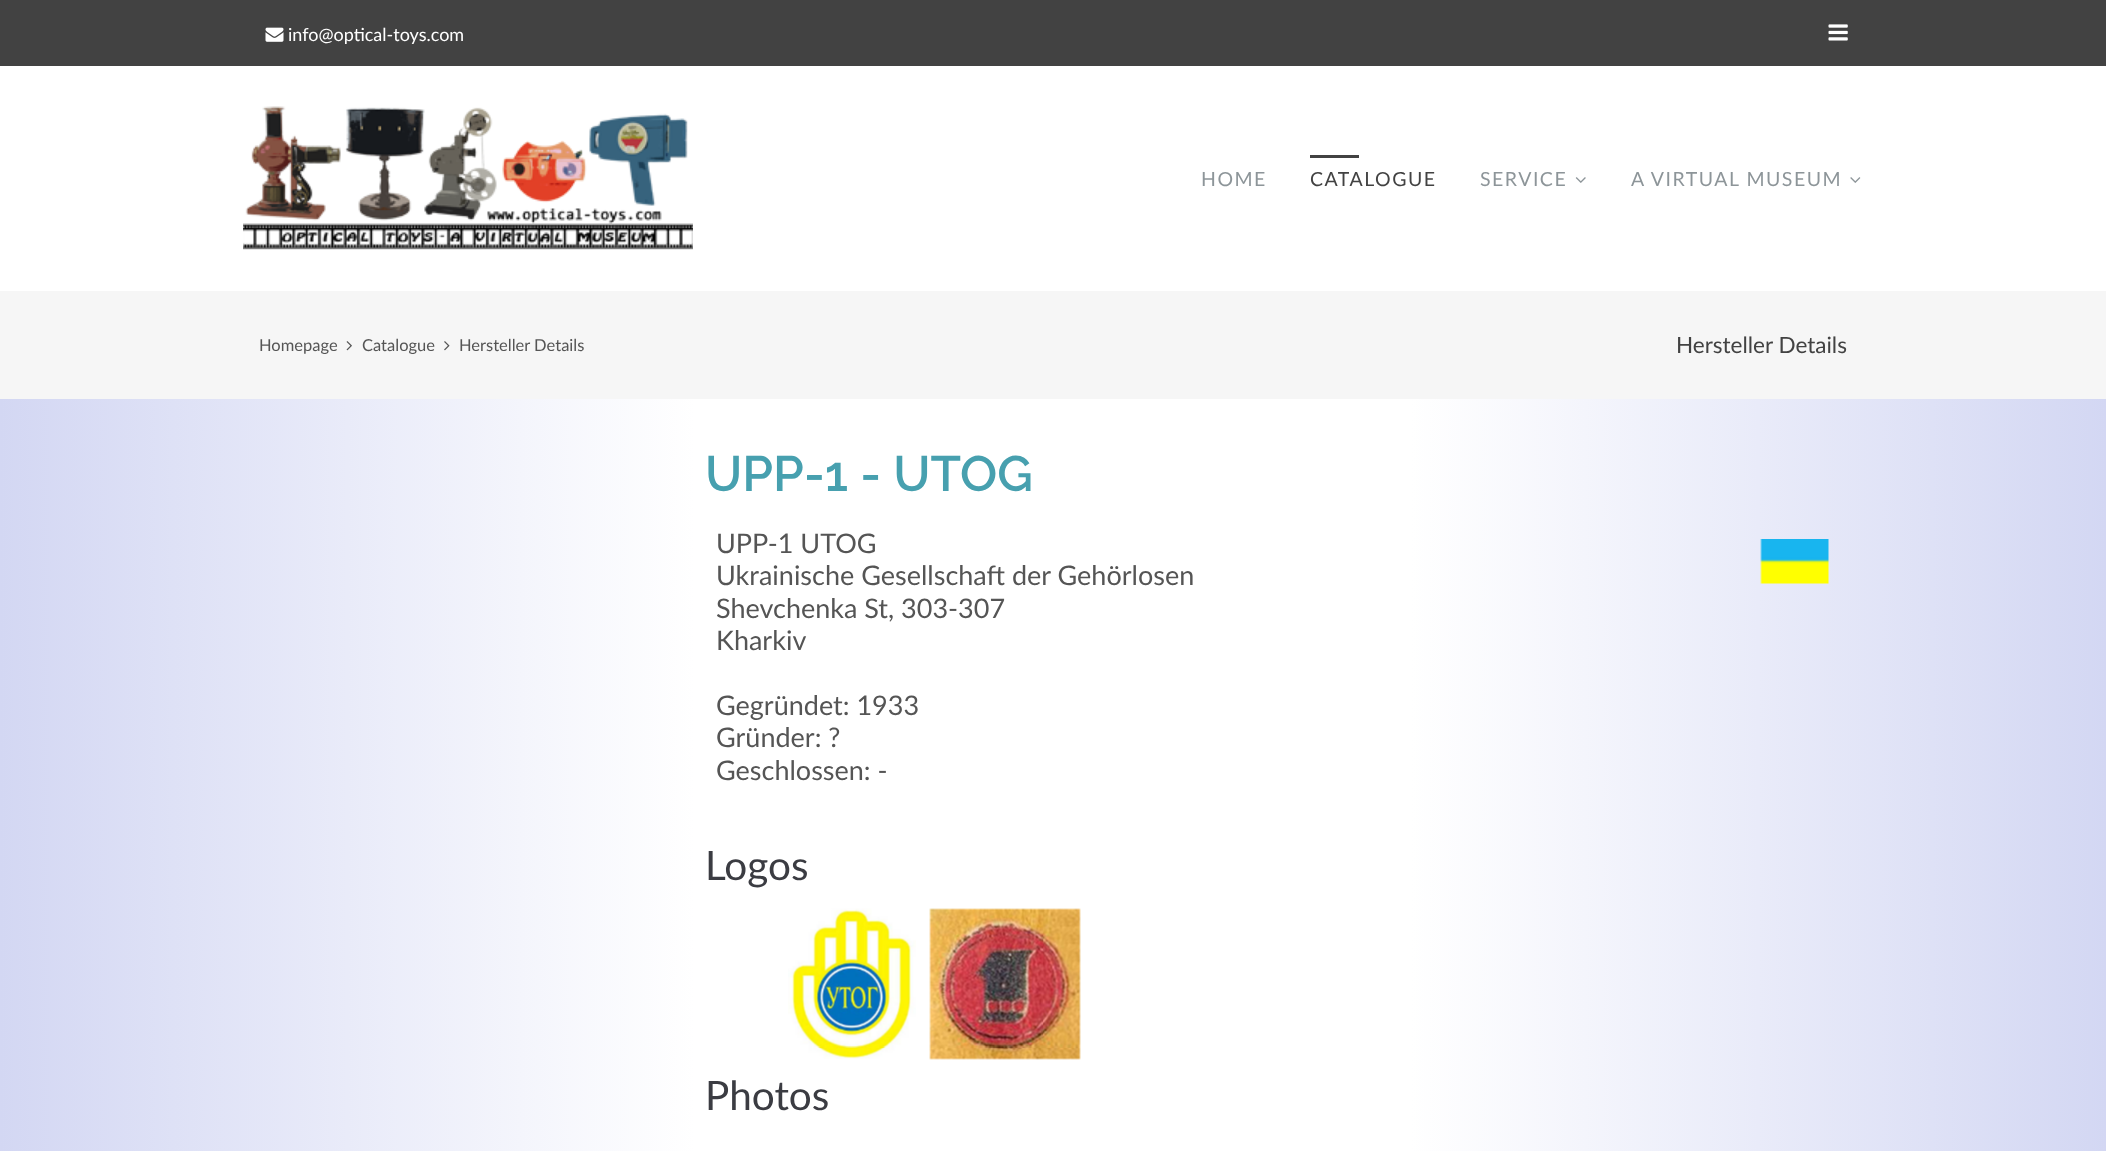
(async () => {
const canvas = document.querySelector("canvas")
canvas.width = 2106
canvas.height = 1151
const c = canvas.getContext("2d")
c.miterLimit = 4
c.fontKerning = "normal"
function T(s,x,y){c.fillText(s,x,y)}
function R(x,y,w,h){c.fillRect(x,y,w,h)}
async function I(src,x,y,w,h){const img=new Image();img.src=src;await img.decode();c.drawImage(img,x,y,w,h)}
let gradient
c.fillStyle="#fff"
R(0,0,2106,1151)
gradient = c.createLinearGradient(0,839,2106,839)
gradient.addColorStop(0,"#d3d7f3")
gradient.addColorStop(.33,"#fff")
gradient.addColorStop(.67,"#fff")
gradient.addColorStop(1,"#d3d7f3")
c.fillStyle = gradient
R(0,399,2106,752)
c.fillStyle="#424242"
R(0,0,2106,66)
await I("1.png",265,27,19,15)
c.font="18px Lato"
c.fillStyle="#fff"
T("info@optical-toys.com",288,41)
await I("2.png",1828,24,20,17)
await I("3.png",243,106,450,144)
c.letterSpacing="1.5px"
c.font="19.5px Lato"
c.fillStyle="#8d9599"
T("HOME",1201,186)
c.fillStyle="#424242"
R(1310,155,49,3)
T("CATALOGUE",1310,186)
c.fillStyle="#8d9599"
T("SERVICE",1480,186)
await I("4.png",1575,177,11,6)
T("A VIRTUAL MUSEUM",1631,186)
await I("5.png",1850,177,11,6)
c.fillStyle="#f6f6f6"
R(0,291,2106,108)
c.letterSpacing="0px"
c.font="16.5px Lato"
c.fillStyle="#555"
T("Homepage",259,351)
await I("6.png",346,341,6,10)
T("Catalogue",362,351)
await I("7.png",444,341,6,10)
T("Hersteller Details",459,351)
c.font="22.5px Lato"
c.fillStyle="#424242"
T("Hersteller Details",1676,353)
c.font="600 49.5px Raleway"
c.fillStyle="#47a0af"
T("UPP-1 - UTOG",705,491)
c.font="27px Lato"
c.fillStyle="#555"
T("UPP-1 UTOG",716,553)
T("Ukrainische Gesellschaft der Gehörlosen",716,585)
T("Shevchenka St, 303-307",716,618)
T("Kharkiv",716,650)
T("Gegründet: 1933",716,715)
T("Gründer: ?",716,747)
T("Geschlossen: -",716,780)
await I("8.png",1760,539,69,45)
c.font="40.5px Lato"
c.fillStyle="#3b3c42"
T("Logos",705,880)
await I("9.png",788,908,128,151)
await I("10.png",929,908,152,152)
T("Photos",705,1110)
})()
